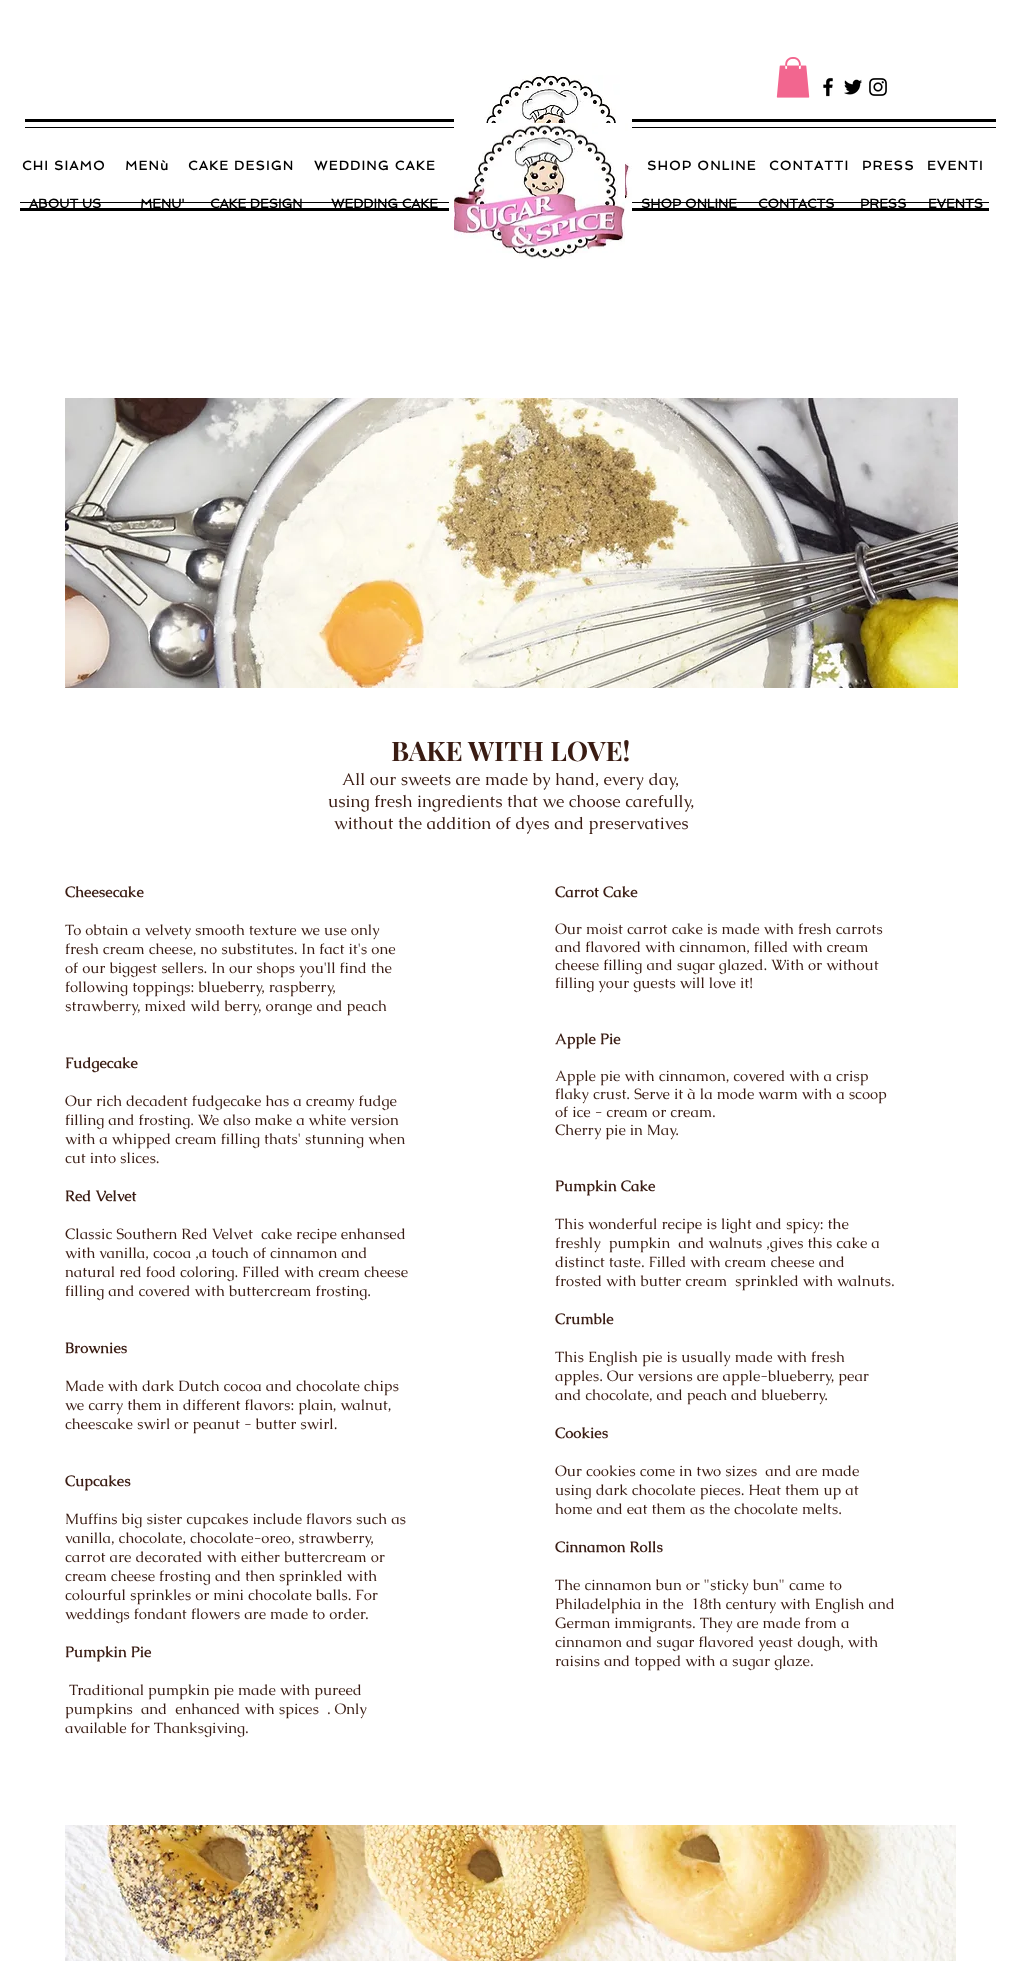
(async () => {
const canvas = document.querySelector("canvas")
canvas.width = 1029
canvas.height = 1961
const c = canvas.getContext("2d")
c.miterLimit = 4
c.fontKerning = "normal"
function T(s,x,y){c.fillText(s,x,y)}
function R(x,y,w,h){c.fillRect(x,y,w,h)}
async function I(src,x,y,w,h){const img=new Image();img.src=src;await img.decode();c.drawImage(img,x,y,w,h)}
c.fillStyle="#fff"
R(0,0,1029,1961)
c.fillStyle="#000"
R(625,119,371,3)
R(625,127,371,1)
await I("1.png",460,75,172,144)
await I("2.png",776,57,34,41)
await I("3.png",823,77,10,20)
await I("4.png",844,79,18,16)
await I("5.png",869,78,18,18)
R(25,119,429,3)
R(25,127,429,1)
c.letterSpacing="1.25px"
c.font="bold 13px Spinnaker"
T("CHI SIAMO",22,170)
T("MENù",125,170)
T("CAKE DESIGN",188,170)
T("WEDDING CAKE",314,170)
T("SHOP ONLINE",647,170)
T("CONTATTI",769,170)
T("PRESS",862,170)
T("EVENTI",927,170)
R(20,208,429,3)
R(20,202,429,1)
R(632,208,357,3)
R(632,202,357,1)
c.letterSpacing="0px"
T("ABOUT US",29,208)
T("MENU'",140,208)
T("CAKE DESIGN",210,208)
T("WEDDING CAKE",331,208)
await I("6.png",454,123,171,136)
T("SHOP ONLINE",641,208)
T("CONTACTS",758,208)
T("PRESS",860,208)
T("EVENTS",928,208)
await I("7.png",65,398,893,290)
c.font="bold 27px Playfair Display"
c.fillStyle="#3a1c13"
T("BAKE WITH LOVE!",391,761)
c.font="17px Caudex"
T("All our sweets are made by hand, every day,",342,785)
T("using fresh ingredients that we choose carefully,",328,807)
T("without the addition of dyes and preservatives",334,829)
c.font="bold 15px Caudex"
T("Cheesecake",65,897)
c.font="15px Caudex"
T("To obtain a velvety smooth texture we use only",65,935)
T("fresh cream cheese, no substitutes. In fact it's one",65,954)
T("of our biggest sellers. In our shops you'll find the",65,973)
T("following toppings: blueberry, raspberry,",65,992)
T("strawberry, mixed wild berry, orange and peach",65,1011)
c.font="bold 15px Caudex"
T("Fudgecake",65,1068)
c.font="15px Caudex"
T("Our rich decadent fudgecake has a creamy fudge",65,1106)
T("filling and frosting. We also make a white version",65,1125)
T("with a whipped cream filling thats' stunning when",65,1144)
T("cut into slices.",65,1163)
c.font="bold 15px Caudex"
T("Red Velvet",65,1201)
c.font="15px Caudex"
T("Classic Southern Red Velvet  cake recipe enhansed",65,1239)
T("with vanilla, cocoa ,a touch of cinnamon and",65,1258)
T("natural red food coloring. Filled with cream cheese",65,1277)
T("filling and covered with buttercream frosting.",65,1296)
c.font="bold 15px Caudex"
T("Brownies",65,1353)
c.font="15px Caudex"
T("Made with dark Dutch cocoa and chocolate chips",65,1391)
T("we carry them in different flavors: plain, walnut,",65,1410)
T("cheescake swirl or peanut - butter swirl.",65,1429)
c.font="bold 15px Caudex"
T("Cupcakes",65,1486)
c.font="15px Caudex"
T("Muffins big sister cupcakes include flavors such as",65,1524)
T("vanilla, chocolate, chocolate-oreo, strawberry,",65,1543)
T("carrot are decorated with either buttercream or",65,1562)
T("cream cheese frosting and then sprinkled with",65,1581)
T("colourful sprinkles or mini chocolate balls. For",65,1600)
T("weddings fondant flowers are made to order.",65,1619)
c.font="bold 15px Caudex"
T("Pumpkin Pie",65,1657)
c.font="15px Caudex"
T("Traditional pumpkin pie made with pureed",69,1695)
T("pumpkins  and  enhanced with spices  . Only",65,1714)
T("available for Thanksgiving.",65,1733)
c.font="bold 15px Caudex"
T("Carrot Cake",555,897)
c.font="15px Caudex"
T("Our moist carrot cake is made with fresh carrots",555,934)
T("and flavored with cinnamon, filled with cream",555,952)
T("cheese filling and sugar glazed. With or without",555,970)
T("filling your guests will love it!",555,988)
c.font="bold 15px Caudex"
T("Apple Pie",555,1044)
c.font="15px Caudex"
T("Apple pie with cinnamon, covered with a crisp",555,1081)
T("flaky crust. Serve it à la mode warm with a scoop",555,1099)
T("of ice - cream or cream.",555,1117)
T("Cherry pie in May.",555,1135)
c.font="bold 15px Caudex"
T("Pumpkin Cake",555,1191)
c.font="15px Caudex"
T("This wonderful recipe is light and spicy: the",555,1229)
T("freshly  pumpkin  and walnuts ,gives this cake a",555,1248)
T("distinct taste. Filled with cream cheese and",555,1267)
T("frosted with butter cream  sprinkled with walnuts.",555,1286)
c.font="bold 15px Caudex"
T("Crumble",555,1324)
c.font="15px Caudex"
T("This English pie is usually made with fresh",555,1362)
T("apples. Our versions are apple-blueberry, pear",555,1381)
T("and chocolate, and peach and blueberry.",555,1400)
c.font="bold 15px Caudex"
T("Cookies",555,1438)
c.font="15px Caudex"
T("Our cookies come in two sizes  and are made",555,1476)
T("using dark chocolate pieces. Heat them up at",555,1495)
T("home and eat them as the chocolate melts.",555,1514)
c.font="bold 15px Caudex"
T("Cinnamon Rolls",555,1552)
c.font="15px Caudex"
T("The cinnamon bun or \"sticky bun\" came to",555,1590)
T("Philadelphia in the  18th century with English and",555,1609)
T("German immigrants. They are made from a",555,1628)
T("cinnamon and sugar flavored yeast dough, with",555,1647)
T("raisins and topped with a sugar glaze.",555,1666)
await I("8.png",65,1825,891,136)
})()
